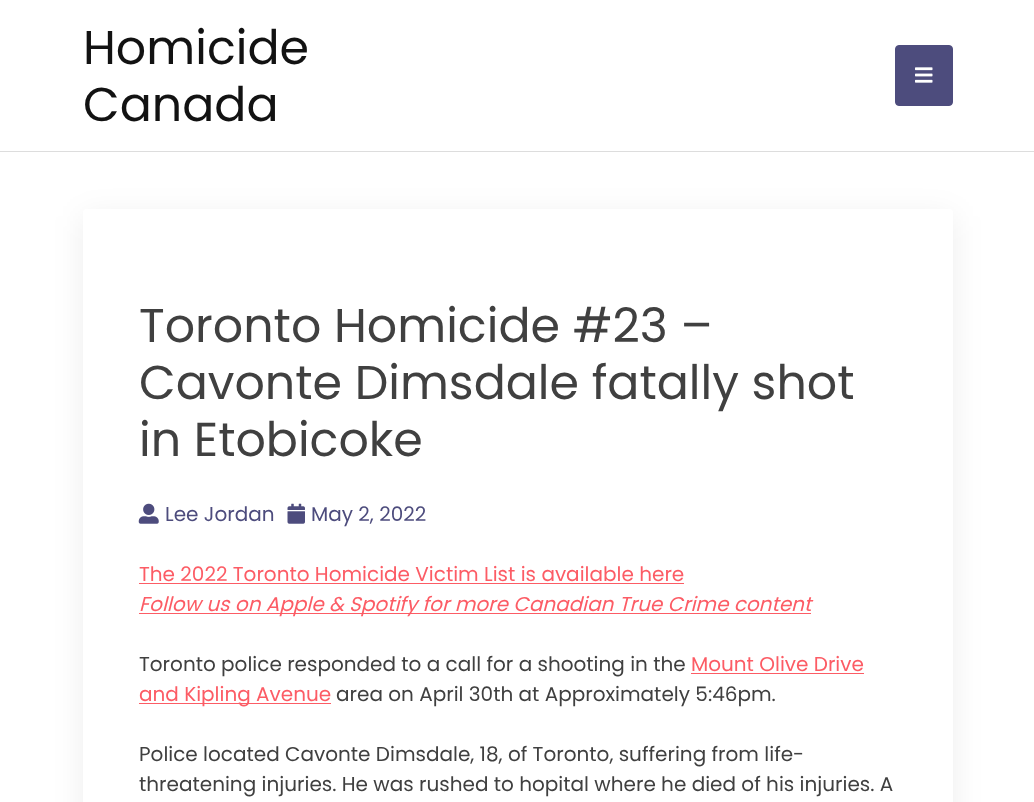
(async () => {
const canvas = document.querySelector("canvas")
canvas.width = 1034
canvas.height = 802
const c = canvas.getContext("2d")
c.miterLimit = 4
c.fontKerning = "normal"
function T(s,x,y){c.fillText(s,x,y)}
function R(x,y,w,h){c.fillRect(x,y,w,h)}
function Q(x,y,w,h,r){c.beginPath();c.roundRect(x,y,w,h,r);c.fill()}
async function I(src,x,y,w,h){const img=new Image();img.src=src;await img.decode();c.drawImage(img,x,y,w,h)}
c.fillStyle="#fff"
R(0,0,1034,802)
c.fillStyle="#ddd"
R(0,151,1034,1)
c.font="47.5px Poppins"
c.fillStyle="#121212"
T("Homicide",83,64)
T("Canada",83,121)
c.fillStyle="#4d4c7d"
c.beginPath()
c.roundRect(895.5,45.5,57,60,3.5)
c.fill()
c.strokeStyle="#4d4c7d"
c.stroke()
await I("1.png",915,67,18,16)
c.fillStyle="#00000012"
c.filter="blur(15.5px)"
c.beginPath()
c.roundRect(83,216,870,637,4)
c.fill()
c.filter="none"
c.fillStyle="#fff"
Q(83,209,870,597,4)
c.fillStyle="#404040"
T("Toronto Homicide #23 –",139,342)
T("Cavonte Dimsdale fatally shot",139,399)
T("in Etobicoke",139,456)
await I("2.png",138,503,21,21)
c.font="20px Poppins"
c.fillStyle="#4d4c7d"
T("Lee Jordan",165,521)
await I("3.png",287,503,18,21)
T("May 2, 2022",311,521)
c.fillStyle="#fc5c65"
T("The 2022 Toronto Homicide Victim List is available here",139,581)
R(139,583,545,1)
R(139,613,672,1)
c.font="italic 20px Poppins"
T("Follow us on Apple & Spotify for more Canadian True Crime content",139,611)
c.font="20px Poppins"
c.fillStyle="#404040"
T("Toronto police responded to a call for a shooting in the",139,671)
c.fillStyle="#fc5c65"
T("Mount Olive Drive",691,671)
R(691,673,173,1)
R(139,703,192,1)
T("and Kipling Avenue",139,701)
c.fillStyle="#404040"
T("area on April 30th at Approximately 5:46pm.",336,701)
T("Police located Cavonte Dimsdale, 18, of Toronto, suffering from life-",139,761)
T("threatening injuries. He was rushed to hopital where he died of his injuries. A",139,791)
})()
